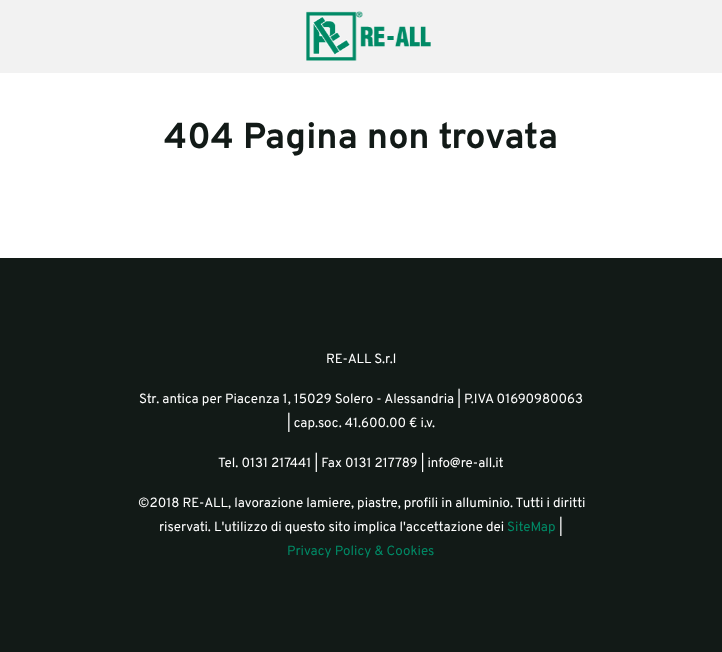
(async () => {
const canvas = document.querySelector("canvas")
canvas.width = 722
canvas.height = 652
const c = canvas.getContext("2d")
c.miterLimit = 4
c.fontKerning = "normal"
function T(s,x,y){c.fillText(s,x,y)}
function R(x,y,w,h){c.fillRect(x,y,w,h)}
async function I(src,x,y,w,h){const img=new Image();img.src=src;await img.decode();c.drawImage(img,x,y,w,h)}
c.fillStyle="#fff"
R(0,0,722,652)
c.fillStyle="#f2f2f2"
R(0,0,722,73)
await I("1.png",306,11,125,50)
c.font="bold 36px Overpass"
c.fillStyle="#121a17"
T("404 Pagina non trovata",164,148)
R(0,258,722,394)
c.font="13.35px Overpass"
c.fillStyle="#fff"
T("RE-ALL S.r.l",326,363)
T("Str. antica per Piacenza 1, 15029 Solero - Alessandria | P.IVA 01690980063",139,403)
T("| cap.soc. 41.600.00 € i.v.",287,427)
T("Tel. 0131 217441 | Fax 0131 217789 | info@re-all.it",218,467)
T("©2018 RE-ALL, lavorazione lamiere, piastre, profili in alluminio. Tutti i diritti",138,507)
T("riservati. L'utilizzo di questo sito implica l'accettazione dei",159,531)
c.fillStyle="#008a66"
T("SiteMap",507,531)
c.fillStyle="#fff"
T("|",559,531)
c.fillStyle="#008a66"
T("Privacy Policy & Cookies",287,555)
})()
